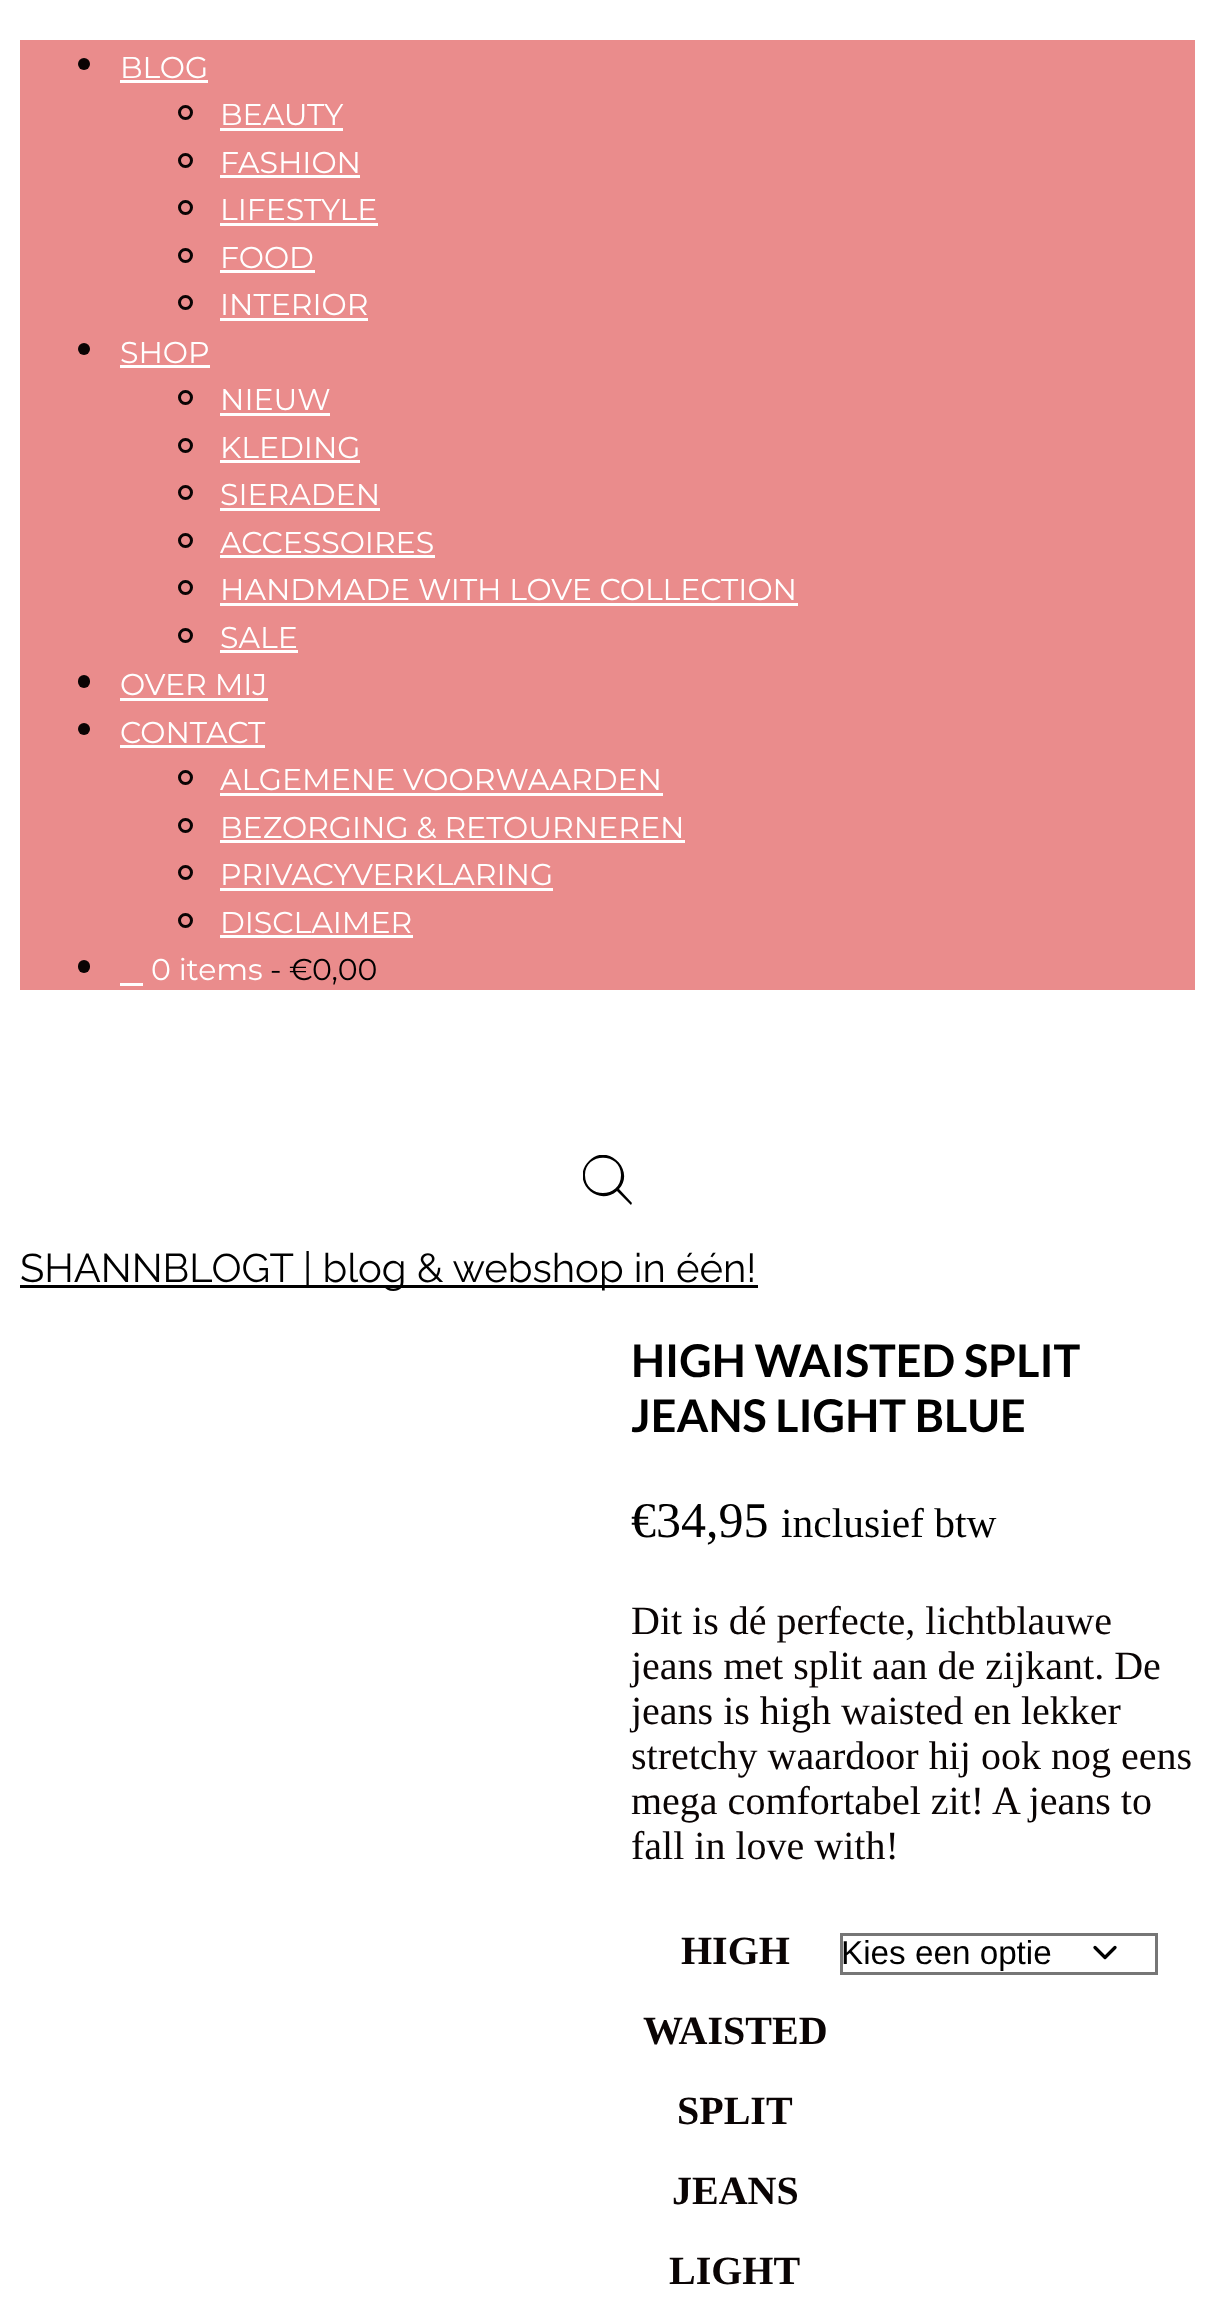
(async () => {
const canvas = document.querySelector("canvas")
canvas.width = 1214
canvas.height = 2318
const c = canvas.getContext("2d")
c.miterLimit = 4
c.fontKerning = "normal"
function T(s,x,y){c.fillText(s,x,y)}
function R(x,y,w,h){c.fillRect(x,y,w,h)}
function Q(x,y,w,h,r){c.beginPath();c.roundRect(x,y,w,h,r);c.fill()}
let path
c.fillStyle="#fff"
R(0,0,1214,2318)
c.fillStyle="#ea8c8c"
R(20,40,1175,950)
c.fillStyle="#0a0404"
c.beginPath()
c.arc(84,64,6,0,7)
c.fill()
c.font="30px Montserrat"
c.fillStyle="#fff"
T("BLOG",120,78)
R(120,80,88,3)
c.beginPath()
c.arc(185.5,112.5,6,0,7)
c.strokeStyle="#0a0404"
c.lineWidth=3
c.stroke()
T("BEAUTY",220,125)
R(220,128,123,3)
c.beginPath()
c.arc(185.5,160.5,6,0,7)
c.stroke()
T("FASHION",220,173)
R(220,175,140,3)
c.beginPath()
c.arc(185.5,207.5,6,0,7)
c.stroke()
T("LIFESTYLE",220,220)
R(220,223,158,3)
c.beginPath()
c.arc(185.5,255.5,6,0,7)
c.stroke()
T("FOOD",220,268)
R(220,270,95,3)
c.beginPath()
c.arc(185.5,302.5,6,0,7)
c.stroke()
T("INTERIOR",220,315)
R(220,318,148,3)
c.fillStyle="#0a0404"
c.beginPath()
c.arc(84,349,6,0,7)
c.fill()
c.fillStyle="#fff"
T("SHOP",120,363)
R(120,365,90,3)
c.beginPath()
c.arc(185.5,397.5,6,0,7)
c.stroke()
T("NIEUW",220,410)
R(220,413,110,3)
c.beginPath()
c.arc(185.5,445.5,6,0,7)
c.stroke()
T("KLEDING",220,458)
R(220,460,140,3)
c.beginPath()
c.arc(185.5,492.5,6,0,7)
c.stroke()
T("SIERADEN",220,505)
R(220,508,160,3)
c.beginPath()
c.arc(185.5,540.5,6,0,7)
c.stroke()
T("ACCESSOIRES",220,553)
R(220,555,215,3)
c.beginPath()
c.arc(185.5,587.5,6,0,7)
c.stroke()
T("HANDMADE WITH LOVE COLLECTION",220,600)
R(220,603,578,3)
c.beginPath()
c.arc(185.5,635.5,6,0,7)
c.stroke()
T("SALE",220,648)
R(220,650,78,3)
c.fillStyle="#0a0404"
Q(78,675,12,13,6)
c.fillStyle="#fff"
T("OVER MIJ",120,695)
R(120,698,148,3)
c.fillStyle="#0a0404"
c.beginPath()
c.arc(84,729,6,0,7)
c.fill()
c.fillStyle="#fff"
T("CONTACT",120,743)
R(120,745,145,3)
c.beginPath()
c.arc(185.5,777.5,6,0,7)
c.stroke()
T("ALGEMENE VOORWAARDEN",220,790)
R(220,793,443,3)
c.beginPath()
c.arc(185.5,825.5,6,0,7)
c.stroke()
T("BEZORGING & RETOURNEREN",220,838)
R(220,840,465,3)
c.beginPath()
c.arc(185.5,872.5,6,0,7)
c.stroke()
T("PRIVACYVERKLARING",220,885)
R(220,888,333,3)
c.beginPath()
c.arc(185.5,920.5,6,0,7)
c.stroke()
T("DISCLAIMER",220,933)
R(220,935,193,3)
c.fillStyle="#0a0404"
Q(78,960,12,13,6)
c.fillStyle="#fff"
R(120,983,23,3)
T("0 items",151,980)
c.fillStyle="#000"
T("-",270,980)
T("€0,00",289,980)
c.save()
c.beginPath()
c.rect(583,1155,50,50)
c.clip()
path = new Path2D("M632 1203l-13-14c17-19-12-47-30-28c-19 19 8 47 28 30l14 14zm-47-28c0-23 36-23 36 0c0 24-36 24-36 0z")
c.fill(path)
c.restore()
R(20,1285,738,3)
c.font="40px Raleway"
T("SHANNBLOGT | blog & webshop in één!",20,1282)
c.font="bold 45px Lato"
T("HIGH WAISTED SPLIT",631,1377)
T("JEANS LIGHT BLUE",631,1432)
c.font="50px Liberation Serif"
T("€34,95",631,1537)
c.font="41.5px Liberation Serif"
T("inclusief btw",781,1537)
c.font="40px Liberation Serif"
c.fillStyle="#0a0404"
T("Dit is dé perfecte, lichtblauwe",631,1634)
T("jeans met split aan de zijkant. De",631,1679)
T("jeans is high waisted en lekker",631,1724)
T("stretchy waardoor hij ook nog eens",631,1769)
T("mega comfortabel zit! A jeans to",631,1814)
T("fall in love with!",631,1859)
c.font="bold 40px Liberation Serif"
T("HIGH",681,1964)
T("WAISTED",643,2044)
T("SPLIT",677,2124)
T("JEANS",672,2204)
T("LIGHT",669,2284)
path = new Path2D("M1095 1947.5l10 10l10-10")
c.strokeStyle="#000"
c.lineWidth=3.3
c.lineCap="round"
c.lineJoin="round"
c.stroke(path)
c.strokeStyle="#767676"
c.lineWidth=3
c.lineJoin="miter"
c.strokeRect(841.5,1934.5,315,39)
c.font="33.25px Liberation Sans"
c.fillStyle="#000"
T("Kies een optie",841,1964)
})()
